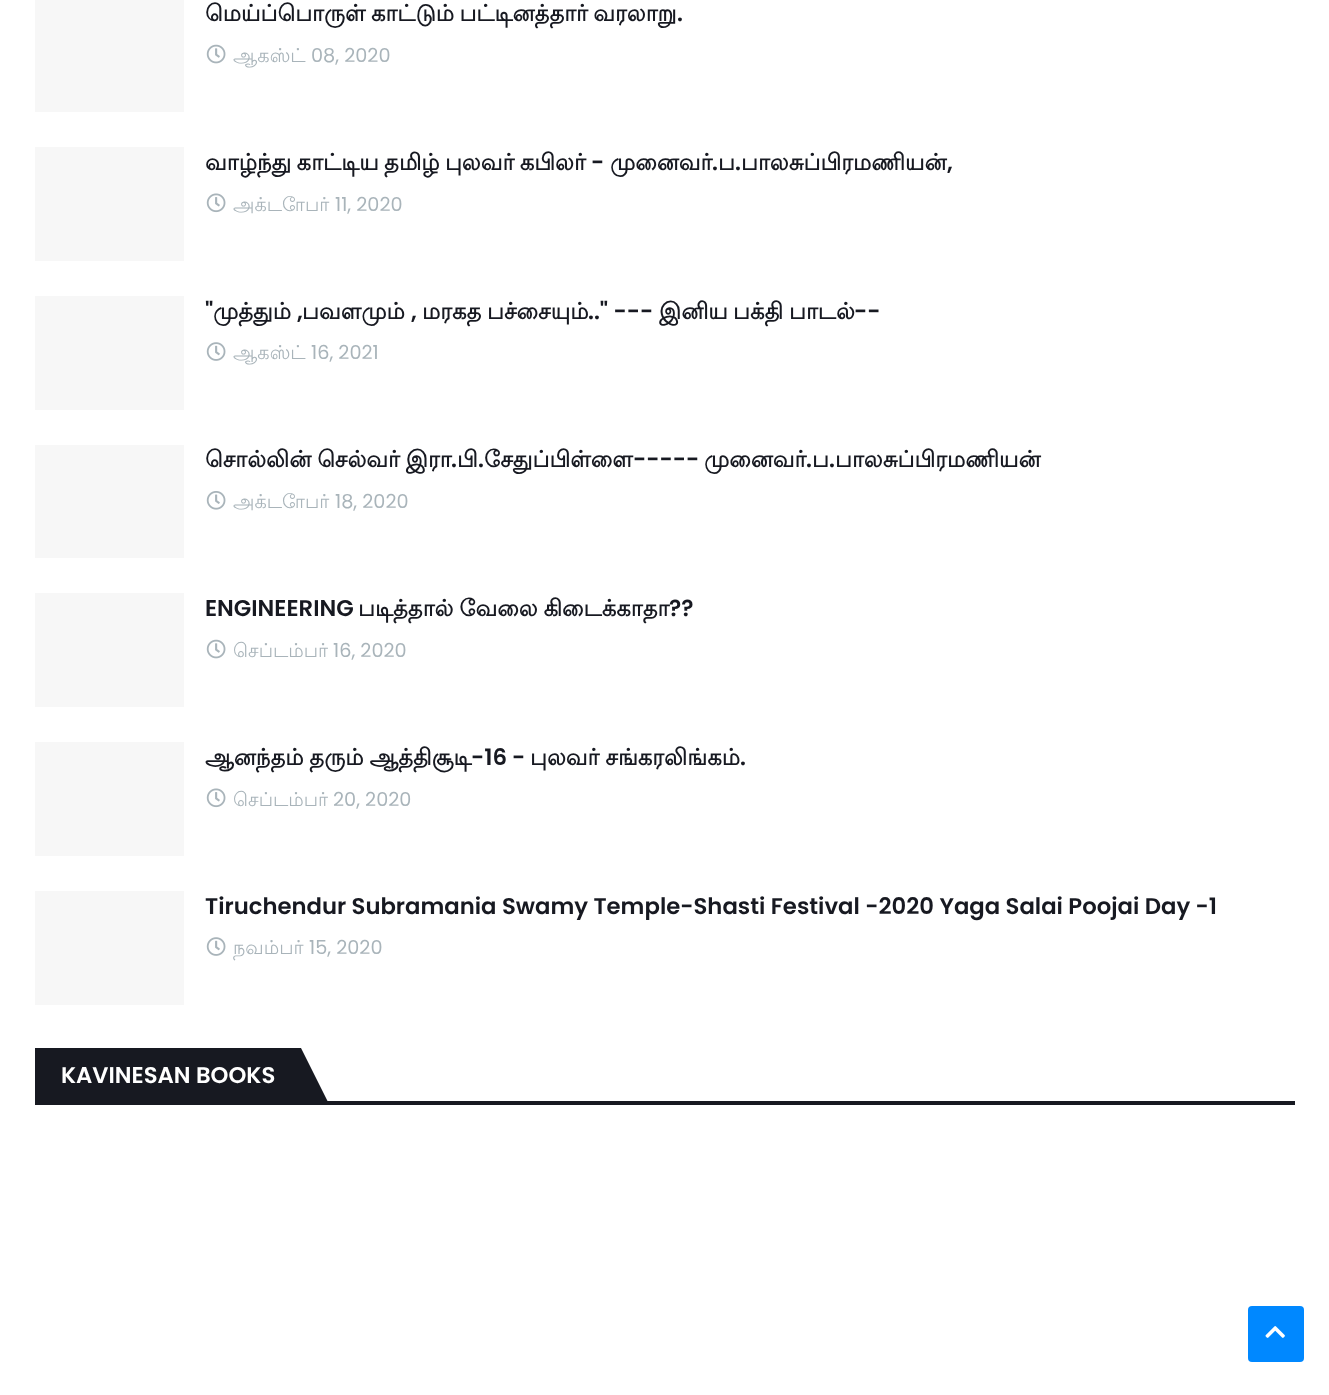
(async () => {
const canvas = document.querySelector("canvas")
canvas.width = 1329
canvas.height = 1395
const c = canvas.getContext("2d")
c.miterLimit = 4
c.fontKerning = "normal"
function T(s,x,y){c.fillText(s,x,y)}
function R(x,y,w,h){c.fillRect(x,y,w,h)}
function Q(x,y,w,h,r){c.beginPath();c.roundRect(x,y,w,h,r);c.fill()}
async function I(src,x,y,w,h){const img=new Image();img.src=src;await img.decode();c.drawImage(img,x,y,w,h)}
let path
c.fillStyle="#fff"
R(0,0,1329,1395)
c.fillStyle="#f7f7f7"
R(35,0,149,112)
c.wordSpacing="-1.5px"
c.font="bold 22.75px Lohit Tamil"
c.fillStyle="#171921"
T("மெய்ப்பொருள் காட்டும் பட்டினத்தார் வரலாறு",205,21)
c.wordSpacing="0px"
c.font="600 22.75px Poppins"
T(".",677,21)
await I("1.png",206,44,20,20)
c.font="19.25px Lohit Tamil"
c.fillStyle="#a9b4ba"
T("ஆகஸ்ட்",233,62)
c.font="19.25px Poppins"
T("08, 2020",311,62)
c.fillStyle="#f7f7f7"
R(35,147,149,114)
c.wordSpacing="-1.5px"
c.font="bold 22.75px Lohit Tamil"
c.fillStyle="#171921"
T("வாழ்ந்து காட்டிய தமிழ் புலவர் கபிலர்",205,170)
c.wordSpacing="0px"
c.font="600 22.75px Poppins"
T("-",591,170)
c.font="bold 22.75px Lohit Tamil"
T("முனைவர்",610,170)
T("ப",718,170)
T("பாலசுப்பிரமணியன்",741,170)
c.font="600 22.75px Poppins"
T(".",712,170)
T(".",735,170)
T(",",947,170)
await I("2.png",206,193,20,20)
c.font="19.25px Lohit Tamil"
c.fillStyle="#a9b4ba"
T("அக்டோபர்",233,211)
c.font="19.25px Poppins"
T("11, 2020",335,211)
c.fillStyle="#f7f7f7"
R(35,296,149,114)
c.font="600 22.75px Poppins"
c.fillStyle="#171921"
T("\"",205,319)
c.font="bold 22.75px Lohit Tamil"
T("முத்தும்",213,319)
T("பவளமும்",302,319)
T("மரகத",422,319)
T("பச்சையும்",487,319)
c.font="600 22.75px Poppins"
T("..\" ---",588,319)
c.font="bold 22.75px Lohit Tamil"
T("இனிய",659,319)
T("பக்தி",733,319)
T("பாடல்",789,319)
c.font="600 22.75px Poppins"
T("--",854,319)
T(",",297,319)
T(",",411,319)
await I("3.png",206,342,20,19)
c.font="19.25px Lohit Tamil"
c.fillStyle="#a9b4ba"
T("ஆகஸ்ட்",233,359)
c.font="19.25px Poppins"
T("16, 2021",311,359)
c.fillStyle="#f7f7f7"
R(35,445,149,113)
c.wordSpacing="-1px"
c.font="bold 22.75px Lohit Tamil"
c.fillStyle="#171921"
T("சொல்லின் செல்வர் இரா",205,467)
c.wordSpacing="0px"
T("பி",457,467)
T("சேதுப்பிள்ளை",484,467)
c.font="600 22.75px Poppins"
T("-----",633,467)
c.font="bold 22.75px Lohit Tamil"
T("முனைவர்",704,467)
T("ப",812,467)
T("பாலசுப்பிரமணியன்",835,467)
c.font="600 22.75px Poppins"
T(".",451,467)
T(".",478,467)
T(".",806,467)
T(".",829,467)
await I("4.png",206,491,20,19)
c.font="19.25px Lohit Tamil"
c.fillStyle="#a9b4ba"
T("அக்டோபர்",233,508)
c.font="19.25px Poppins"
T("18, 2020",335,508)
c.fillStyle="#f7f7f7"
R(35,593,149,114)
c.font="600 22.75px Poppins"
c.fillStyle="#171921"
T("ENGINEERING",205,616)
c.wordSpacing="-1px"
c.font="bold 22.75px Lohit Tamil"
T("படித்தால் வேலை கிடைக்காதா",358,616)
c.wordSpacing="0px"
c.font="600 22.75px Poppins"
T("??",669,616)
await I("1.png",206,639,20,20)
c.font="19.25px Lohit Tamil"
c.fillStyle="#a9b4ba"
T("செப்டம்பர்",233,657)
c.font="19.25px Poppins"
T("16, 2020",333,657)
c.fillStyle="#f7f7f7"
R(35,742,149,114)
c.wordSpacing="-1px"
c.font="bold 22.75px Lohit Tamil"
c.fillStyle="#171921"
T("ஆனந்தம் தரும் ஆத்திசூடி",205,765)
c.wordSpacing="0px"
c.font="600 22.75px Poppins"
T("-16",471,765)
T("-",512,765)
c.wordSpacing="-1px"
c.font="bold 22.75px Lohit Tamil"
T("புலவர் சங்கரலிங்கம்",530,765)
c.wordSpacing="0px"
c.font="600 22.75px Poppins"
T(".",740,765)
await I("2.png",206,788,20,20)
c.font="19.25px Lohit Tamil"
c.fillStyle="#a9b4ba"
T("செப்டம்பர்",233,806)
c.font="19.25px Poppins"
T("20, 2020",333,806)
c.fillStyle="#f7f7f7"
R(35,891,149,114)
c.font="600 22.75px Poppins"
c.fillStyle="#171921"
T("Tiruchendur Subramania Swamy Temple-Shasti Festival -2020 Yaga Salai Poojai Day -1",205,914)
await I("3.png",206,937,20,19)
c.font="19.25px Lohit Tamil"
c.fillStyle="#a9b4ba"
T("நவம்பர்",233,954)
c.font="19.25px Poppins"
T("15, 2020",309,954)
c.fillStyle="#171921"
R(35,1101,1260,4)
R(35,1048,266,53)
c.font="600 22.75px Poppins"
c.fillStyle="#fff"
T("KAVINESAN BOOKS",61,1083)
c.fillStyle="#171921"
path = new Path2D("M301 1104v-56l28 56z")
c.fill(path)
c.fillStyle="#08f"
Q(1248,1306,56,56,4)
await I("5.png",1265,1326,20,12)
})()
